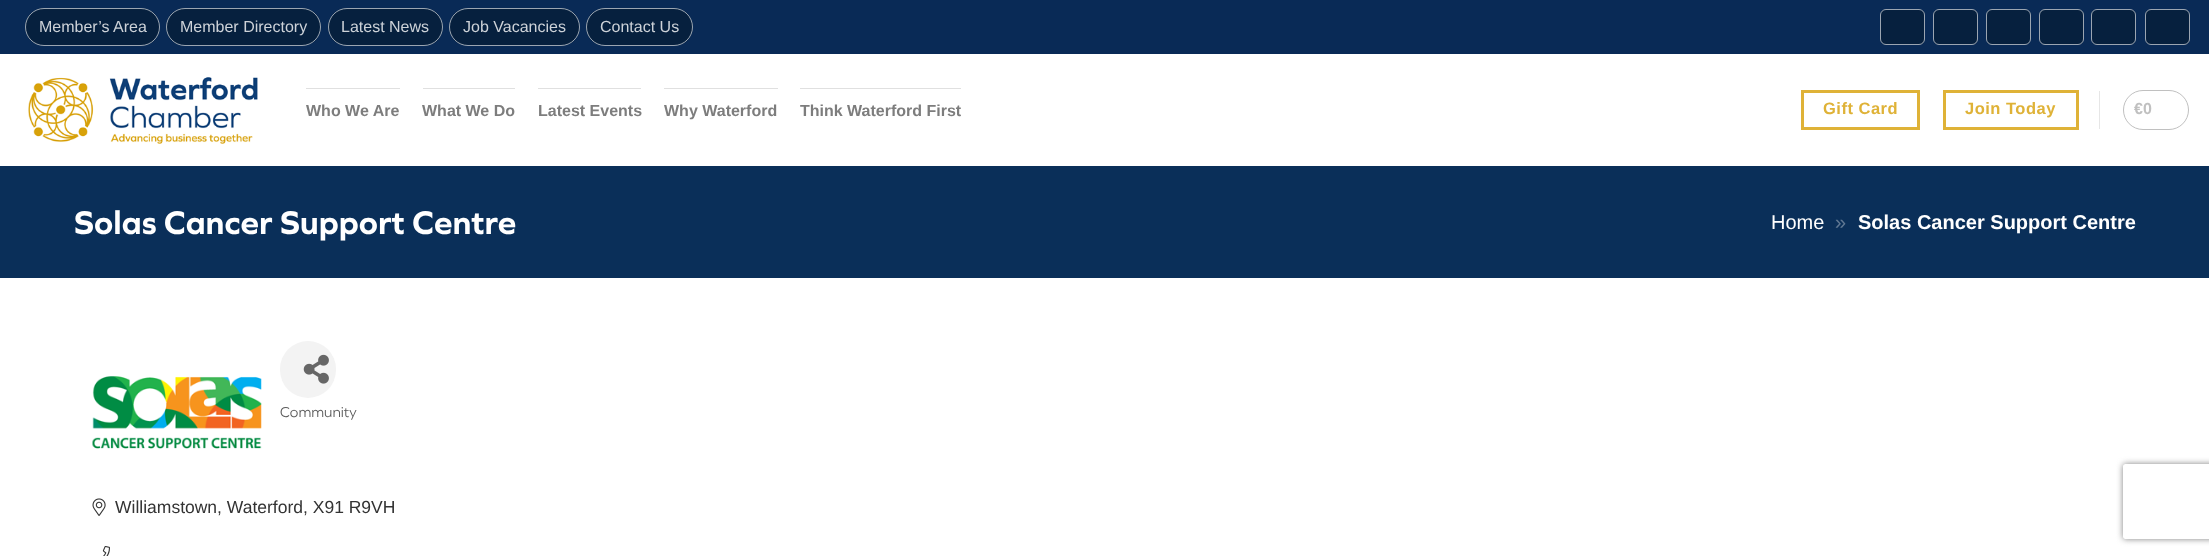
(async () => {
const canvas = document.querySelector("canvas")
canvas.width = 2209
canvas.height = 556
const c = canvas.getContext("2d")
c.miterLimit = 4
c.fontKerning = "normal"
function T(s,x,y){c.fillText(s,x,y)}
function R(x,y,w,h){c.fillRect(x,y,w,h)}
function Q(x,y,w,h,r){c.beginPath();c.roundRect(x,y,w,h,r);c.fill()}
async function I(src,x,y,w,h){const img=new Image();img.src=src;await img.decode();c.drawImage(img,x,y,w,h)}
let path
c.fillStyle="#fff"
R(0,0,2209,556)
c.fillStyle="#092a56"
R(0,0,2209,54)
c.fillStyle="#06203e"
Q(25,8,135,38,19)
c.beginPath()
c.roundRect(25.5,8.5,134,37,18.5)
c.strokeStyle="#ffffff99"
c.stroke()
c.font="16px Liberation Sans"
c.fillStyle="#cdd2d8"
T("Member’s Area",39,32)
c.fillStyle="#06203e"
Q(166,8,155,38,19)
c.beginPath()
c.roundRect(166.5,8.5,154,37,18.5)
c.stroke()
c.fillStyle="#cdd2d8"
T("Member Directory",180,32)
c.fillStyle="#06203e"
Q(328,8,115,38,19)
c.beginPath()
c.roundRect(328.5,8.5,114,37,18.5)
c.stroke()
c.fillStyle="#cdd2d8"
T("Latest News",341,32)
c.fillStyle="#06203e"
Q(449,8,131,38,19)
c.beginPath()
c.roundRect(449.5,8.5,130,37,18.5)
c.stroke()
c.fillStyle="#cdd2d8"
T("Job Vacancies",463,32)
c.fillStyle="#06203e"
Q(586,8,107,38,19)
c.beginPath()
c.roundRect(586.5,8.5,106,37,18.5)
c.stroke()
c.fillStyle="#cdd2d8"
T("Contact Us",600,32)
c.fillStyle="#06203e"
Q(1880,9,45,36,6)
c.beginPath()
c.roundRect(1880.5,9.5,44,35,5.5)
c.stroke()
Q(1933,9,45,36,6)
c.beginPath()
c.roundRect(1933.5,9.5,44,35,5.5)
c.stroke()
Q(1986,9,45,36,6)
c.beginPath()
c.roundRect(1986.5,9.5,44,35,5.5)
c.stroke()
Q(2039,9,45,36,6)
c.beginPath()
c.roundRect(2039.5,9.5,44,35,5.5)
c.stroke()
Q(2091,9,45,36,6)
c.beginPath()
c.roundRect(2091.5,9.5,44,35,5.5)
c.stroke()
Q(2145,9,45,36,6)
c.beginPath()
c.roundRect(2145.5,9.5,44,35,5.5)
c.stroke()
await I("1.png",28,77,230,67)
c.fillStyle="#e0e0e0"
R(306,88,94,1)
c.font="bold 16px Liberation Sans"
c.fillStyle="#7d7d7d"
T("Who We Are",306,116)
c.fillStyle="#e0e0e0"
R(423,88,92,1)
c.fillStyle="#7d7d7d"
T("What We Do",422,116)
c.fillStyle="#e0e0e0"
R(538,88,103,1)
c.fillStyle="#7d7d7d"
T("Latest Events",538,116)
c.fillStyle="#e0e0e0"
R(664,88,114,1)
c.fillStyle="#7d7d7d"
T("Why Waterford",664,116)
c.fillStyle="#e0e0e0"
R(800,88,161,1)
c.fillStyle="#7d7d7d"
T("Think Waterford First",800,116)
c.strokeStyle="#dfb237"
c.lineWidth=3
c.strokeRect(1802.5,91.5,116,37)
c.letterSpacing="0.5px"
c.font="bold 16.5px Liberation Sans"
c.fillStyle="#dfb237"
T("Gift Card",1823,114)
c.strokeRect(1944.5,91.5,133,37)
T("Join Today",1965,114)
c.fillStyle="#e6e6e6"
R(2099,91,1,38)
c.beginPath()
c.roundRect(2123.5,90.5,65,39,19.5)
c.strokeStyle="#c0c0c0"
c.lineWidth=1
c.stroke()
c.letterSpacing="0px"
c.font="bold 16px Liberation Sans"
c.fillStyle="#c0c0c0"
T("€0",2134,114)
c.fillStyle="#0a2f59"
R(0,166,2209,112)
c.font="bold 34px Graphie"
c.fillStyle="#fff"
T("Solas Cancer Support Centre",74,234)
c.font="20px Liberation Sans"
T("Home",1771,229)
c.fillStyle="#607893"
T("»",1835,229)
c.font="bold 20px Liberation Sans"
c.fillStyle="#fff"
T("Solas Cancer Support Centre",1858,229)
await I("2.png",92,376,170,73)
c.fillStyle="#f3f3f3"
Q(280,341,56,57,28)
await I("3.png",303,354,26,30)
c.font="15px Graphie"
c.fillStyle="#5c5c5c"
T("Community",280,417)
await I("4.png",92,498,14,18)
c.font="17.5px Liberation Sans"
c.fillStyle="#333"
T("Williamstown, Waterford, X91 R9VH",115,513)
await I("5.png",102,546,8,10)
c.save()
path = new Path2D("M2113 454h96v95h-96zm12.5 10h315c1.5 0 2.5 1 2.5 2.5v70c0 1.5-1 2.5-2.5 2.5h-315c-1.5 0-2.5-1-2.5-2.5v-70c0-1.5 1-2.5 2.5-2.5z")
c.clip(path,"evenodd")
c.fillStyle="#808080"
c.filter="blur(3px)"
c.beginPath()
c.roundRect(2123,464,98,75,2.5)
c.fill()
c.filter="none"
c.restore()
})()
